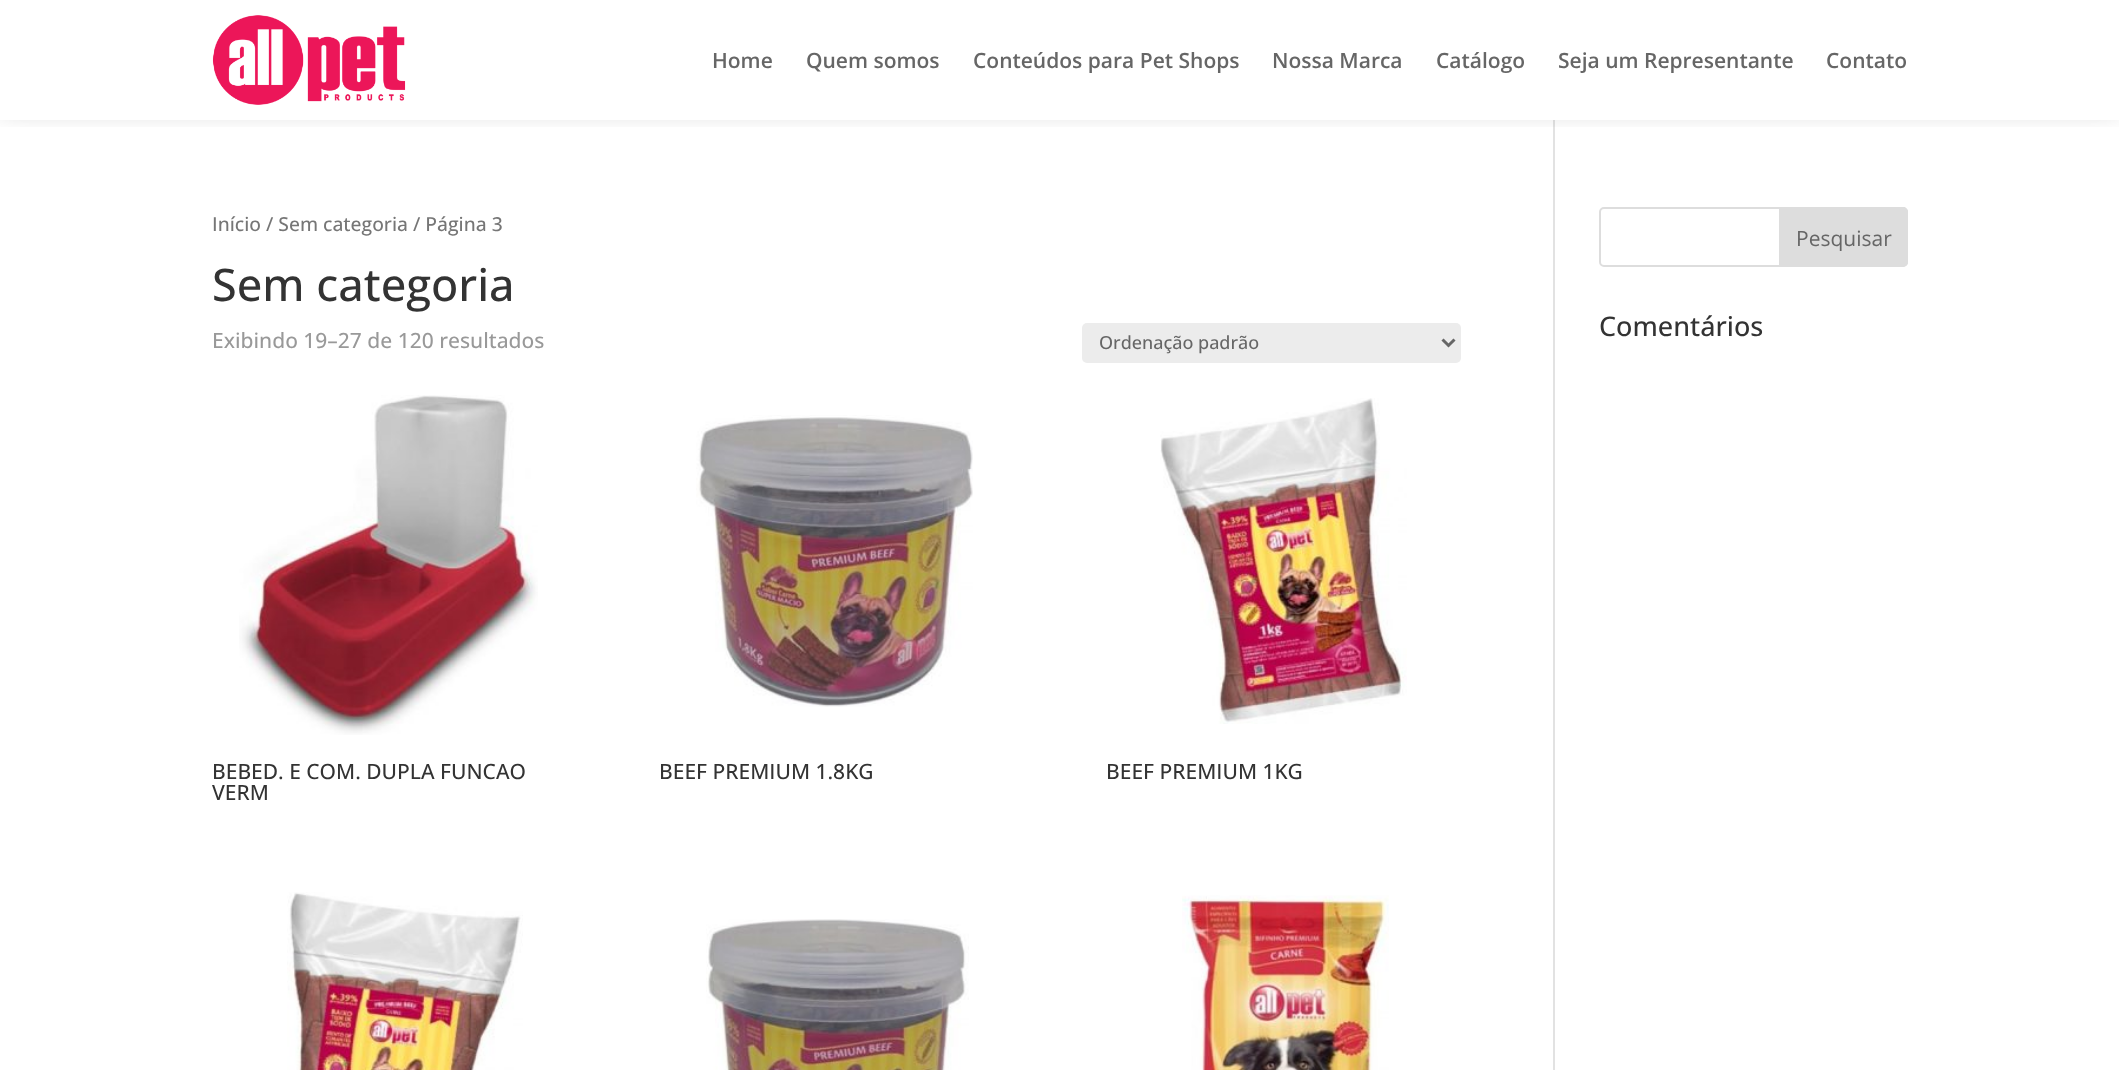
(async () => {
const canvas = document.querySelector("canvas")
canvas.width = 2119
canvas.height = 1070
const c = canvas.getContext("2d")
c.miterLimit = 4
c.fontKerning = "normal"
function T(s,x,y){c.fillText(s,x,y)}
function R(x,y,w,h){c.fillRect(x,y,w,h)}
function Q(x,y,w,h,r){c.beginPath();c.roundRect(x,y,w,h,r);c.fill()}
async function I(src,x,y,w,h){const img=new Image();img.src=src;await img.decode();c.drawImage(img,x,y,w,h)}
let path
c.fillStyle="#fff"
R(0,0,2119,1070)
c.fillStyle="#e2e2e2"
R(1553,120,2,950)
c.save()
c.beginPath()
c.rect(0,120,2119,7)
c.clip()
c.fillStyle="#0000004d"
c.filter="blur(13.5px)"
c.beginPath()
c.rect(0,-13,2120,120)
c.fill()
c.filter="none"
c.restore()
await I("1.png",212,15,194,90)
c.font="600 21px Open Sans"
c.fillStyle="#666"
T("Home",712,68)
T("Quem somos",806,68)
T("Conteúdos para Pet Shops",973,68)
T("Nossa Marca",1272,68)
T("Catálogo",1436,68)
T("Seja um Representante",1558,68)
T("Contato",1826,68)
c.font="500 19.3px Open Sans"
c.fillStyle="#767676"
T("Início / Sem categoria / Página 3",212,231)
c.font="500 45px Open Sans"
c.fillStyle="#333"
T("Sem categoria",212,301)
c.font="500 21px Open Sans"
c.fillStyle="#999"
T("Exibindo 19–27 de 120 resultados",212,348)
c.fillStyle="#ececec"
Q(1082,323,379,40,5)
path = new Path2D("M1442.5 339.5l6 6l6-6")
c.strokeStyle="#666"
c.lineWidth=3
c.stroke(path)
c.font="500 18px Open Sans"
c.fillStyle="#666"
T("Ordenação padrão",1099,349)
await I("2.png",239,395,299,340)
c.font="500 21px Open Sans"
c.fillStyle="#333"
T("BEBED. E COM. DUPLA FUNCAO",212,779)
T("VERM",212,800)
await I("3.png",696,415,277,292)
T("BEEF PREMIUM 1.8KG",659,779)
await I("4.png",1160,398,247,326)
T("BEEF PREMIUM 1KG",1106,779)
await I("5.png",287,892,236,178)
await I("6.png",706,919,263,151)
await I("7.png",1182,895,207,175)
c.beginPath()
c.roundRect(1600,208,307,58,4)
c.strokeStyle="#ddd"
c.lineWidth=2
c.stroke()
c.fillStyle="#ddd"
c.beginPath()
c.roundRect(1780,208,127,58,[0,4,4,0])
c.fill()
c.stroke()
c.font="21px Open Sans"
c.fillStyle="#666"
T("Pesquisar",1796,246)
c.font="500 27px Open Sans"
c.fillStyle="#333"
T("Comentários",1599,336)
})()
